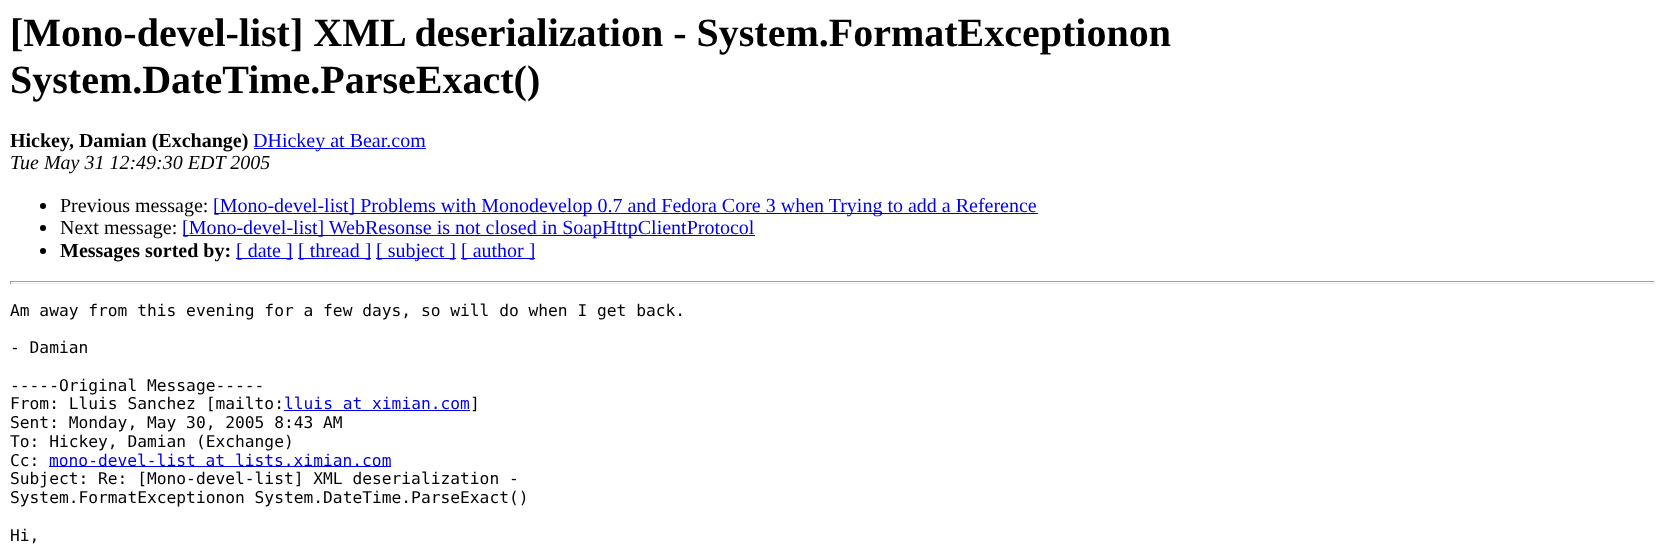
(async () => {
const canvas = document.querySelector("canvas")
canvas.width = 1664
canvas.height = 557
const c = canvas.getContext("2d")
c.miterLimit = 4
c.fontKerning = "normal"
function T(s,x,y){c.fillText(s,x,y)}
function R(x,y,w,h){c.fillRect(x,y,w,h)}
c.fillStyle="#fff"
R(0,0,1664,557)
c.font="bold 40px Liberation Serif"
c.fillStyle="#000"
T("[Mono-devel-list] XML deserialization - System.FormatExceptionon",10,46)
T("System.DateTime.ParseExact()",10,93)
c.font="bold 20px Liberation Serif"
T("Hickey, Damian (Exchange)",10,147)
c.fillStyle="#00e"
R(254,148,172,1)
c.font="20px Liberation Serif"
T("DHickey at Bear.com",253,147)
c.font="italic 20px Liberation Serif"
c.fillStyle="#000"
T("Tue May 31 12:49:30 EDT 2005",10,169)
c.beginPath()
c.arc(43,206,3,0,7)
c.fill()
c.font="20px Liberation Serif"
T("Previous message:",60,212)
c.fillStyle="#00e"
R(214,213,824,1)
T("[Mono-devel-list] Problems with Monodevelop 0.7 and Fedora Core 3 when Trying to add a Reference",213,212)
c.fillStyle="#000"
c.beginPath()
c.arc(43,228,3,0,7)
c.fill()
T("Next message:",60,234)
c.fillStyle="#00e"
R(183,235,572,1)
T("[Mono-devel-list] WebResonse is not closed in SoapHttpClientProtocol",182,234)
c.fillStyle="#000"
c.beginPath()
c.arc(43,251,3,0,7)
c.fill()
c.font="bold 20px Liberation Serif"
T("Messages sorted by:",60,257)
c.fillStyle="#00e"
R(236,258,57,1)
c.font="20px Liberation Serif"
T("[ date ]",236,257)
R(298,258,73,1)
T("[ thread ]",298,257)
R(376,258,80,1)
T("[ subject ]",376,257)
R(461,258,74,1)
T("[ author ]",461,257)
c.fillStyle="#9f9f9f"
R(10,281,1645,1)
c.fillStyle="#eee"
R(1654,281,1,3)
R(10,283,1645,1)
c.fillStyle="#9f9f9f"
R(10,281,1,3)
c.font="16.25px DejaVu Sans Mono"
c.fillStyle="#000"
T("Am away from this evening for a few days, so will do when I get back.",10,316)
T("- Damian",10,353)
T("-----Original Message-----",10,391)
T("From: Lluis Sanchez [mailto:",10,409)
c.fillStyle="#00e"
T("lluis at ximian.com",284,409)
R(284,410,186,1)
c.fillStyle="#000"
T("]",470,409)
T("Sent: Monday, May 30, 2005 8:43 AM",10,428)
T("To: Hickey, Damian (Exchange)",10,447)
T("Cc:",10,466)
c.fillStyle="#00e"
R(49,466,342,1)
T("mono-devel-list at lists.ximian.com",49,466)
c.fillStyle="#000"
T("Subject: Re: [Mono-devel-list] XML deserialization -",10,484)
T("System.FormatExceptionon System.DateTime.ParseExact()",10,503)
T("Hi,",10,541)
})()
